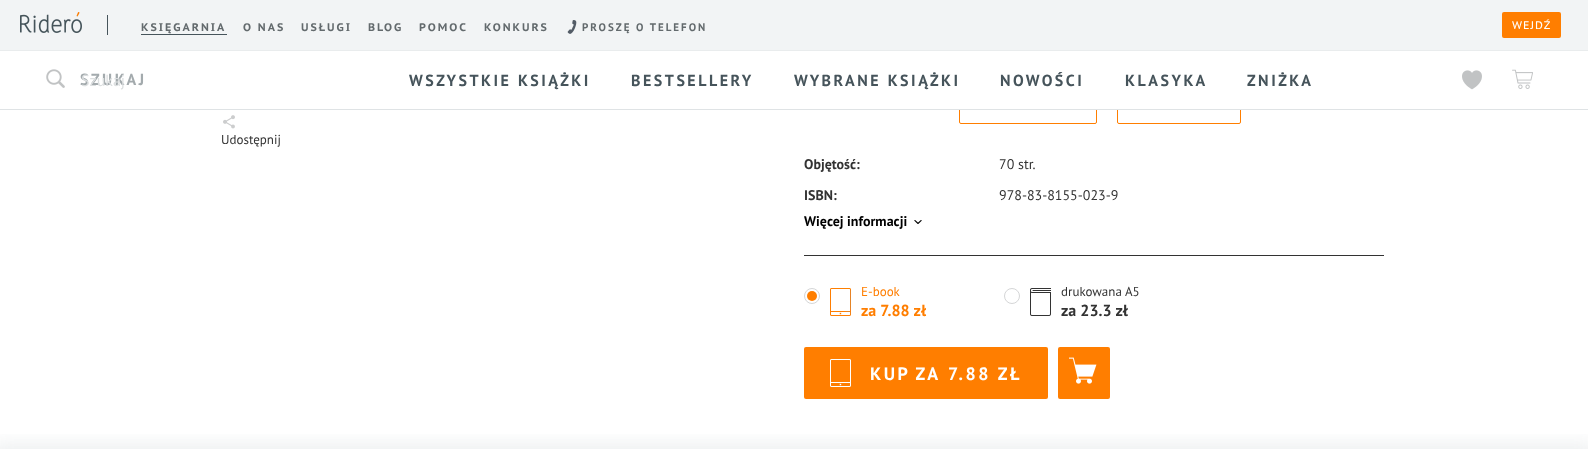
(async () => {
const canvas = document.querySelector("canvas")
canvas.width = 1588
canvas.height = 471
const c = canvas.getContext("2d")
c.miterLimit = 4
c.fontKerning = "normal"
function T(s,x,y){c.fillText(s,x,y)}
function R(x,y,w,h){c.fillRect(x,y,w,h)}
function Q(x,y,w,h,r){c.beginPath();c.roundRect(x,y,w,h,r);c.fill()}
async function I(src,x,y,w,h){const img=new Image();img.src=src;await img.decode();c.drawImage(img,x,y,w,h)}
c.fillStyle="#fff"
R(0,0,1588,471)
c.fillStyle="#e9eced"
R(0,50,1588,1)
c.fillStyle="#f2f4f5"
R(0,0,1588,50)
await I("1.png",20,12,62,21)
c.fillStyle="#46545b"
R(107,15,1,20)
c.letterSpacing="2px"
c.font="bold 11px PT Sans Caption"
c.fillStyle="#636a6d"
T("KSIĘGARNIA",141,31)
c.fillStyle="#46545b"
R(141,34,86,1)
c.fillStyle="#636a6d"
T("O NAS",243,31)
T("USŁUGI",301,31)
T("BLOG",368,31)
T("POMOC",419,31)
T("KONKURS",484,31)
await I("2.png",567,20,10,14)
c.font="bold 11px PT Sans"
T("PROSZĘ O TELEFON",582,31)
c.fillStyle="#ff7e00"
Q(1502,12,59,26,2)
c.letterSpacing="1px"
c.font="11px PT Sans Caption"
c.fillStyle="#fff"
T("WEJDŹ",1512,29)
c.beginPath()
c.roundRect(959.5,82.5,137,41,1.5)
c.strokeStyle="#ff7e00"
c.stroke()
c.beginPath()
c.roundRect(1117.5,82.5,123,41,1.5)
c.stroke()
R(959,82,282,27)
c.fillStyle="#dfe3e5"
R(0,109,1588,1)
await I("3.png",46,69,19,19)
c.letterSpacing="2.5px"
c.font="bold 16px PT Sans"
c.fillStyle="#a3aaad"
T("SZUKAJ",80,85)
c.letterSpacing="0px"
c.font="16px PT Sans"
c.fillStyle="#dcdfe0"
T("Szukaj",81,86)
c.letterSpacing="2.5px"
c.font="bold 16px PT Sans"
c.fillStyle="#46545b"
T("WSZYSTKIE KSIĄŻKI",409,86)
T("BESTSELLERY",631,86)
T("WYBRANE KSIĄŻKI",794,86)
T("NOWOŚCI",1000,86)
T("KLASYKA",1125,86)
T("ZNIŻKA",1247,86)
await I("4.png",1462,70,20,20)
await I("5.png",1512,69,21,20)
await I("6.png",223,115,12,14)
c.letterSpacing="0px"
c.font="13px PT Sans"
c.fillStyle="#333"
T("Udostępnij",221,144)
R(804,255,580,1)
c.font="bold 14px PT Sans"
T("Objętość:",804,169)
c.font="14px PT Sans"
T("70 str.",999,169)
c.font="bold 14px PT Sans"
T("ISBN:",804,200)
c.font="14px PT Sans"
T("978-83-8155-023-9",999,200)
c.font="bold 14px PT Sans"
c.fillStyle="#000"
T("Więcej informacji",804,226)
await I("7.png",914,220,8,4)
c.beginPath()
c.arc(812,296,7.5,0,7)
c.strokeStyle="#d5d6d7"
c.stroke()
c.fillStyle="#ff7e00"
c.beginPath()
c.arc(812,296,5,0,7)
c.fill()
await I("8.png",830,288,21,28)
c.font="13px PT Sans"
T("E-book",861,296)
c.font="bold 16px PT Sans"
T("za 7.88 zł",861,316)
c.beginPath()
c.arc(1012,296,7.5,0,7)
c.stroke()
await I("9.png",1030,288,21,28)
c.font="13px PT Sans"
c.fillStyle="#333"
T("drukowana",1061,296)
T("A5",1125,296)
c.font="bold 16px PT Sans"
T("za 23.3 zł",1061,316)
c.fillStyle="#ff7e00"
Q(804,347,244,52,2)
await I("10.png",830,359,21,28)
c.letterSpacing="2.5px"
c.wordSpacing="-1px"
c.font="bold 18px PT Sans"
c.fillStyle="#fff"
T("KUP ZA",870,380)
c.wordSpacing="0px"
T("7.88 ZŁ",948,380)
c.fillStyle="#ff7e00"
Q(1058,347,52,52,2)
await I("11.png",1069,357,28,27)
c.save()
c.beginPath()
c.rect(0,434,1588,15)
c.clip()
c.fillStyle="#6d7f8726"
c.filter="blur(11px)"
c.beginPath()
c.rect(-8,446,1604,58)
c.fill()
c.filter="none"
c.restore()
})()
